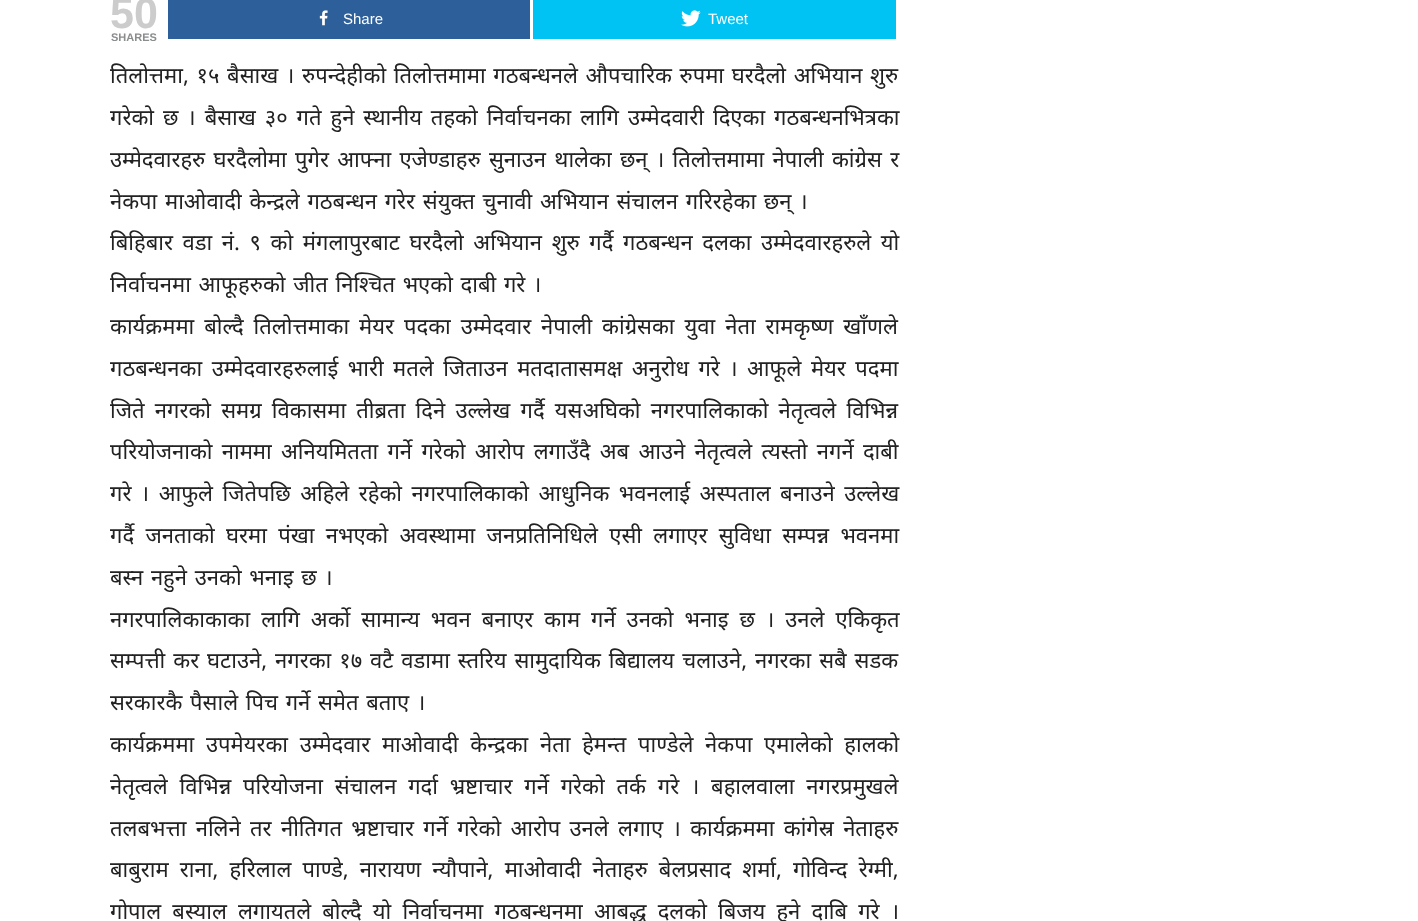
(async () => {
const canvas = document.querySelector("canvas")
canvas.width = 1418
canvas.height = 921
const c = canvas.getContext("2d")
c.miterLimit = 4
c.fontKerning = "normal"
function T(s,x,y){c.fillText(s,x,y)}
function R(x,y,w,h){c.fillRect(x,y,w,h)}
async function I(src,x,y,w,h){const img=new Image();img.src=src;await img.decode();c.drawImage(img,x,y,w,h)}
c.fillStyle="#fff"
R(0,0,1418,921)
c.font="bold 43px Liberation Sans"
c.fillStyle="#ccc"
T("50",110,28)
c.font="bold 11px Liberation Sans"
c.fillStyle="#8a8c8e"
T("SHARES",111,41)
c.fillStyle="#2d5f9a"
R(168,0,362,39)
await I("1.png",319,10,9,16)
c.font="15px Liberation Sans"
c.fillStyle="#fff"
T("Share",343,24)
c.fillStyle="#00c3f3"
R(533,0,363,39)
await I("2.png",681,10,20,17)
c.fillStyle="#fff"
T("Tweet",708,24)
c.wordSpacing="2px"
c.font="22px Noto Sans"
c.fillStyle="#222"
T("तिलोत्तमा, १५ बैसाख । रुपन्देहीको तिलोत्तमामा गठबन्धनले औपचारिक रुपमा घरदैलो अभियान शुरु",110,83)
c.wordSpacing="3.25px"
T("गरेको छ । बैसाख ३० गते हुने स्थानीय तहको निर्वाचनका लागि उम्मेदवारी दिएका गठबन्धनभित्रका",110,125)
c.wordSpacing="2.6px"
T("उम्मेदवारहरु घरदैलोमा पुगेर आफ्ना एजेण्डाहरु सुनाउन थालेका छन् । तिलोत्तमामा नेपाली कांग्रेस र",110,167)
c.wordSpacing="2px"
T("नेकपा माओवादी केन्द्रले गठबन्धन गरेर संयुक्त चुनावी अभियान संचालन गरिरहेका छन् ।",110,209)
c.wordSpacing="3.9px"
T("बिहिबार वडा नं. ९ को मंगलापुरबाट घरदैलो अभियान शुरु गर्दै गठबन्धन दलका उम्मेदवारहरुले यो",110,250)
c.wordSpacing="2px"
T("निर्वाचनमा आफूहरुको जीत निश्चित भएको दाबी गरे ।",110,292)
c.wordSpacing="4.25px"
T("कार्यक्रममा बोल्दै तिलोत्तमाका मेयर पदका उम्मेदवार नेपाली कांग्रेसका युवा नेता रामकृष्ण खाँणले",110,334)
c.wordSpacing="3.75px"
T("गठबन्धनका उम्मेदवारहरुलाई भारी मतले जिताउन मतदातासमक्ष अनुरोध गरे । आफूले मेयर पदमा",110,376)
c.wordSpacing="4.5px"
T("जिते नगरको समग्र विकासमा तीब्रता दिने उल्लेख गर्दै यसअघिको नगरपालिकाको नेतृत्वले विभिन्न",110,418)
c.wordSpacing="3.6px"
T("परियोजनाको नाममा अनियमितता गर्ने गरेको आरोप लगाउँदै अब आउने नेतृत्वले त्यस्तो नगर्ने दाबी",110,459)
c.wordSpacing="3.75px"
T("गरे । आफुले जितेपछि अहिले रहेको नगरपालिकाको आधुनिक भवनलाई अस्पताल बनाउने उल्लेख",110,501)
c.wordSpacing="5.6px"
T("गर्दै जनताको घरमा पंखा नभएको अवस्थामा जनप्रतिनिधिले एसी लगाएर सुविधा सम्पन्न भवनमा",110,543)
c.wordSpacing="2px"
T("बस्न नहुने उनको भनाइ छ ।",110,585)
c.wordSpacing="5.25px"
T("नगरपालिकाकाका लागि अर्को सामान्य भवन बनाएर काम गर्ने उनको भनाइ छ । उनले एकिकृत",110,627)
c.wordSpacing="2.25px"
T("सम्पत्ती कर घटाउने, नगरका १७ वटै वडामा स्तरिय सामुदायिक बिद्यालय चलाउने, नगरका सबै सडक",110,668)
c.wordSpacing="2px"
T("सरकारकै पैसाले पिच गर्ने समेत बताए ।",110,710)
c.wordSpacing="6px"
T("कार्यक्रममा उपमेयरका उम्मेदवार माओवादी केन्द्रका नेता हेमन्त पाण्डेले नेकपा एमालेको हालको",110,752)
c.wordSpacing="6.1px"
T("नेतृत्वले विभिन्न परियोजना संचालन गर्दा भ्रष्टाचार गर्ने गरेको तर्क गरे । बहालवाला नगरप्रमुखले",110,794)
c.wordSpacing="3.6px"
T("तलबभत्ता नलिने तर नीतिगत भ्रष्टाचार गर्ने गरेको आरोप उनले लगाए । कार्यक्रममा कांगेस्र नेताहरु",110,836)
c.wordSpacing="5.4px"
T("बाबुराम राना, हरिलाल पाण्डे, नारायण न्यौपाने, माओवादी नेताहरु बेलप्रसाद शर्मा, गोविन्द रेग्मी,",110,877)
T("गोपाल बस्याल लगायतले बोल्दै यो निर्वाचनमा गठबन्धनमा आबद्ध दलको बिजय हुने दाबि गरे ।",110,919)
})()
